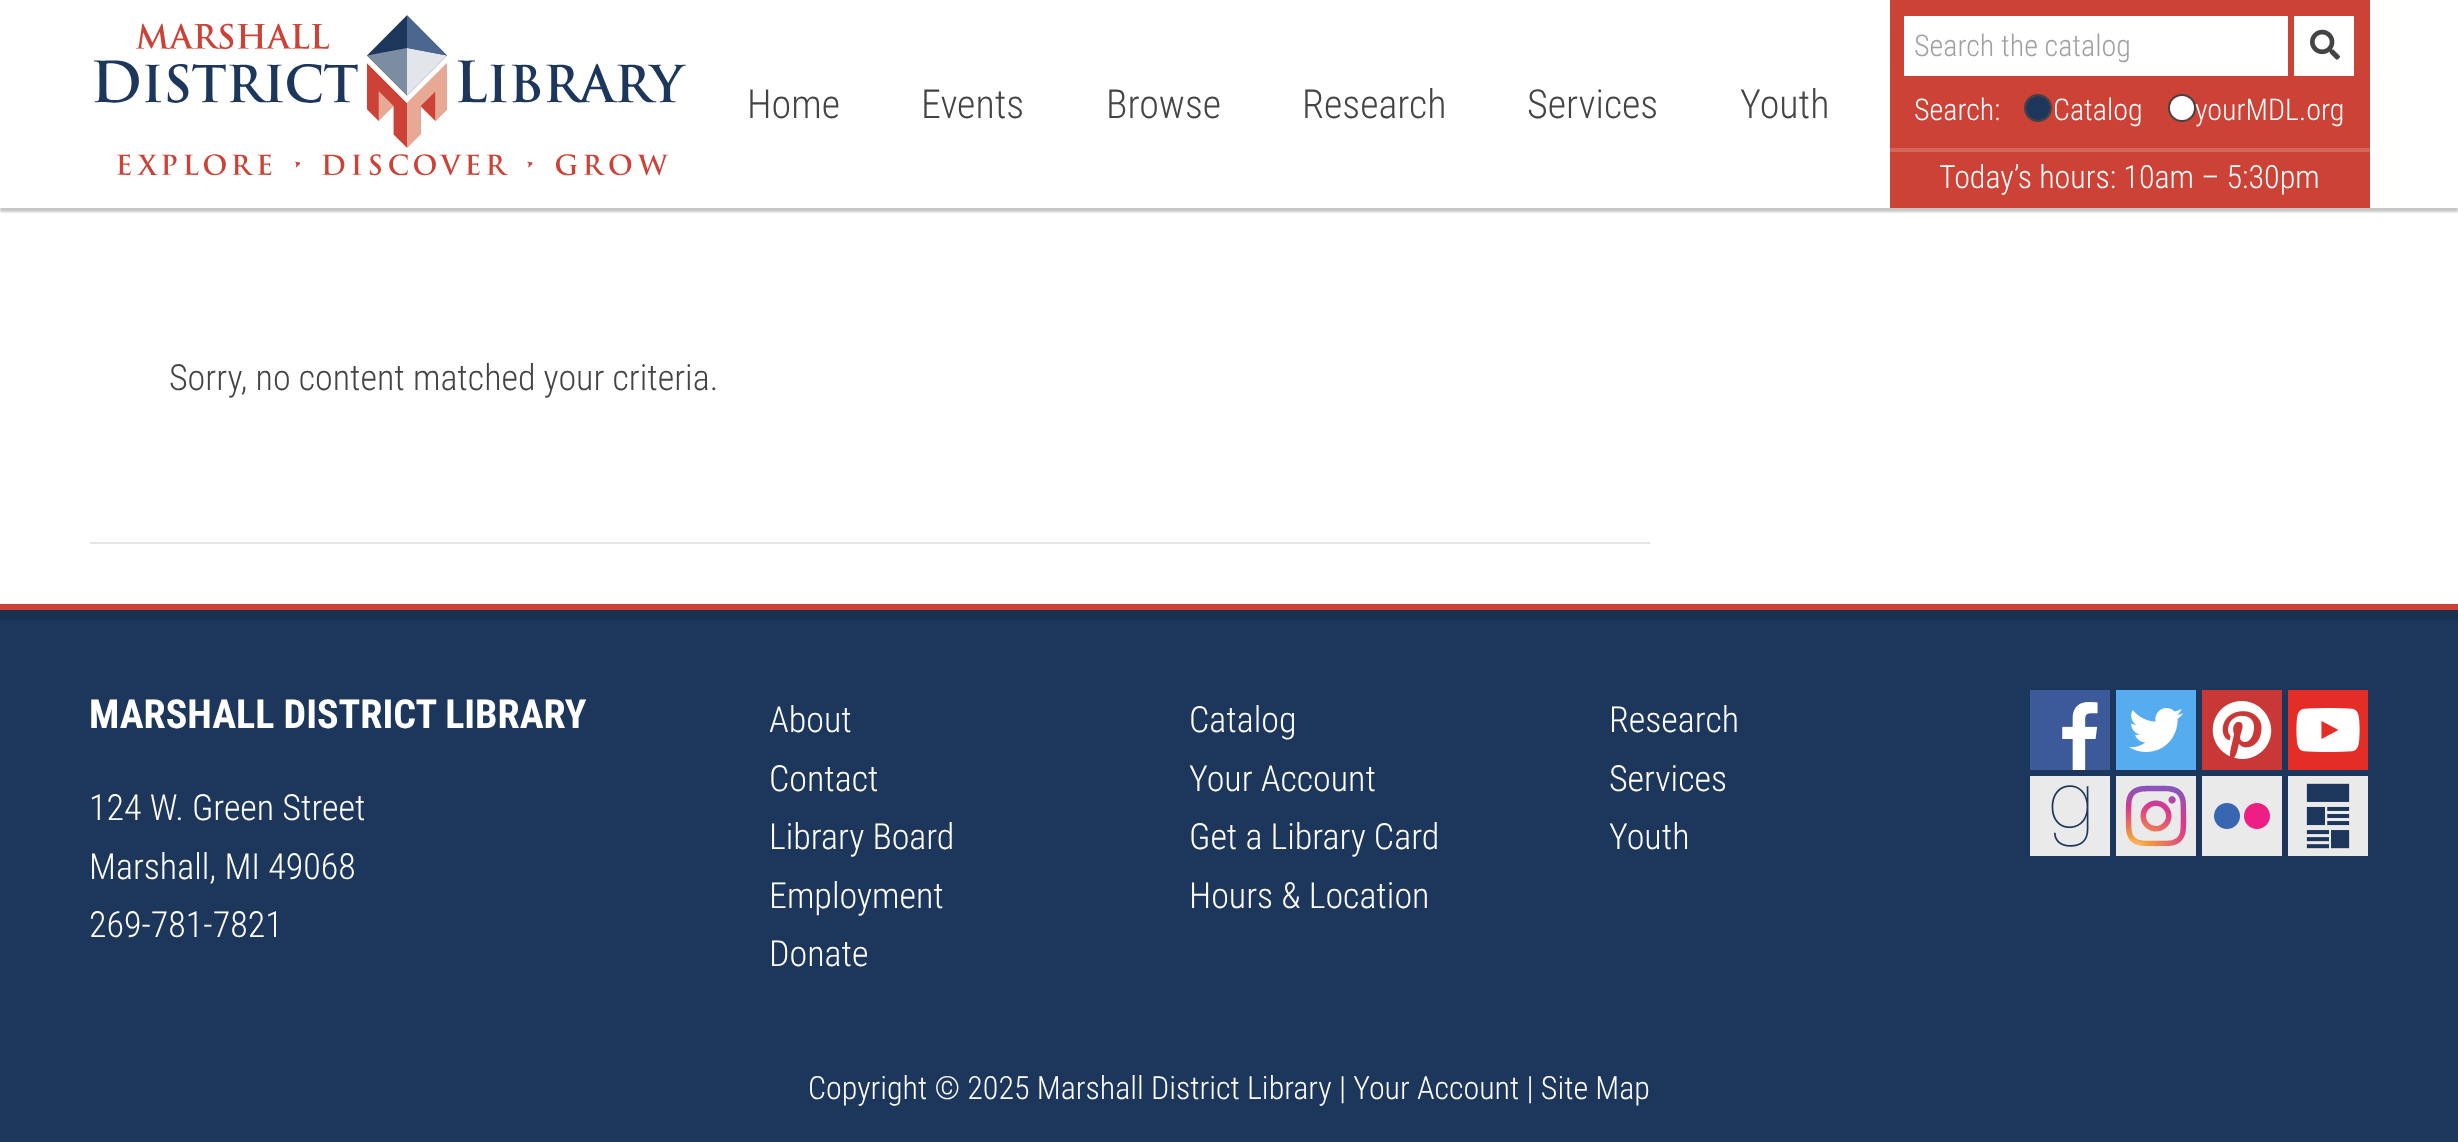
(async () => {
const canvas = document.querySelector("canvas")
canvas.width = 2458
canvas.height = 1142
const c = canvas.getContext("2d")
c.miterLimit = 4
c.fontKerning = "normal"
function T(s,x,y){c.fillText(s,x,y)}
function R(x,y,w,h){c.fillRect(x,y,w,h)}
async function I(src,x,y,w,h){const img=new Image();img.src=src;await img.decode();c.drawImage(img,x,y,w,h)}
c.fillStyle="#fff"
R(0,0,2458,1142)
c.save()
c.beginPath()
c.rect(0,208,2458,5)
c.clip()
c.fillStyle="#4646464d"
c.filter="blur(1px)"
c.beginPath()
c.rect(0,0,2458,212)
c.fill()
c.filter="none"
c.restore()
await I("1.png",94,15,592,161)
c.font="300 40px Roboto Condensed"
c.fillStyle="#444"
T("Home",747,118)
T("Events",921,118)
T("Browse",1106,118)
T("Research",1302,118)
T("Services",1527,118)
T("Youth",1740,118)
c.fillStyle="#cd4236"
R(1890,0,480,148)
c.fillStyle="#fff"
R(1904,16,384,60)
c.font="300 30px Roboto Condensed"
c.fillStyle="#a1a1a1"
T("Search the catalog",1914,56)
c.fillStyle="#fff"
R(2294,16,60,60)
await I("2.png",2310,29,30,31)
T("Search:",1914,120)
c.beginPath()
c.arc(2038,108,13,0,7)
c.strokeStyle="#444"
c.lineWidth=2
c.stroke()
c.fillStyle="#1c375b"
c.beginPath()
c.arc(2038,108,12,0,7)
c.fill()
c.fillStyle="#fff"
T("Catalog",2053,120)
c.beginPath()
c.arc(2182,108,13,0,7)
c.stroke()
c.beginPath()
c.arc(2182,108,12,0,7)
c.fill()
T("yourMDL.org",2195,120)
c.fillStyle="#cd4236"
R(1890,152,480,56)
c.fillStyle="#d6655c"
R(1890,148,480,4)
c.font="300 32px Roboto Condensed"
c.fillStyle="#fff"
T("Today’s hours: 10am – 5:30pm",1939,188)
c.fillStyle="#e5e5e5"
R(90,542,1560,2)
c.font="300 36px Roboto Condensed"
c.fillStyle="#444"
T("Sorry, no content matched your criteria.",169,390)
c.fillStyle="#1c375b"
R(0,620,2458,522)
c.fillStyle="#193252"
R(0,610,2458,10)
c.fillStyle="#cd4236"
R(0,604,2458,6)
c.font="bold 40px Roboto Condensed"
c.fillStyle="#fff"
T("MARSHALL DISTRICT LIBRARY",89,728)
c.font="300 36px Roboto Condensed"
T("124 W. Green Street",89,820)
T("Marshall, MI 49068",89,879)
T("269-781-7821",89,937)
T("About",769,732)
T("Contact",769,791)
T("Library Board",769,849)
T("Employment",769,908)
T("Donate",769,966)
T("Catalog",1189,732)
T("Your Account",1189,791)
T("Get a Library Card",1189,849)
T("Hours & Location",1189,908)
T("Research",1609,732)
T("Services",1609,791)
T("Youth",1609,849)
await I("3.png",2030,690,80,80)
await I("4.png",2116,690,80,80)
await I("5.png",2202,690,80,80)
await I("6.png",2288,690,80,80)
await I("7.png",2030,776,80,80)
await I("8.png",2116,776,80,80)
await I("9.png",2202,776,80,80)
await I("10.png",2288,776,80,80)
c.font="300 32px Roboto Condensed"
T("Copyright © 2025 Marshall District Library | Your Account | Site Map",808,1099)
})()
